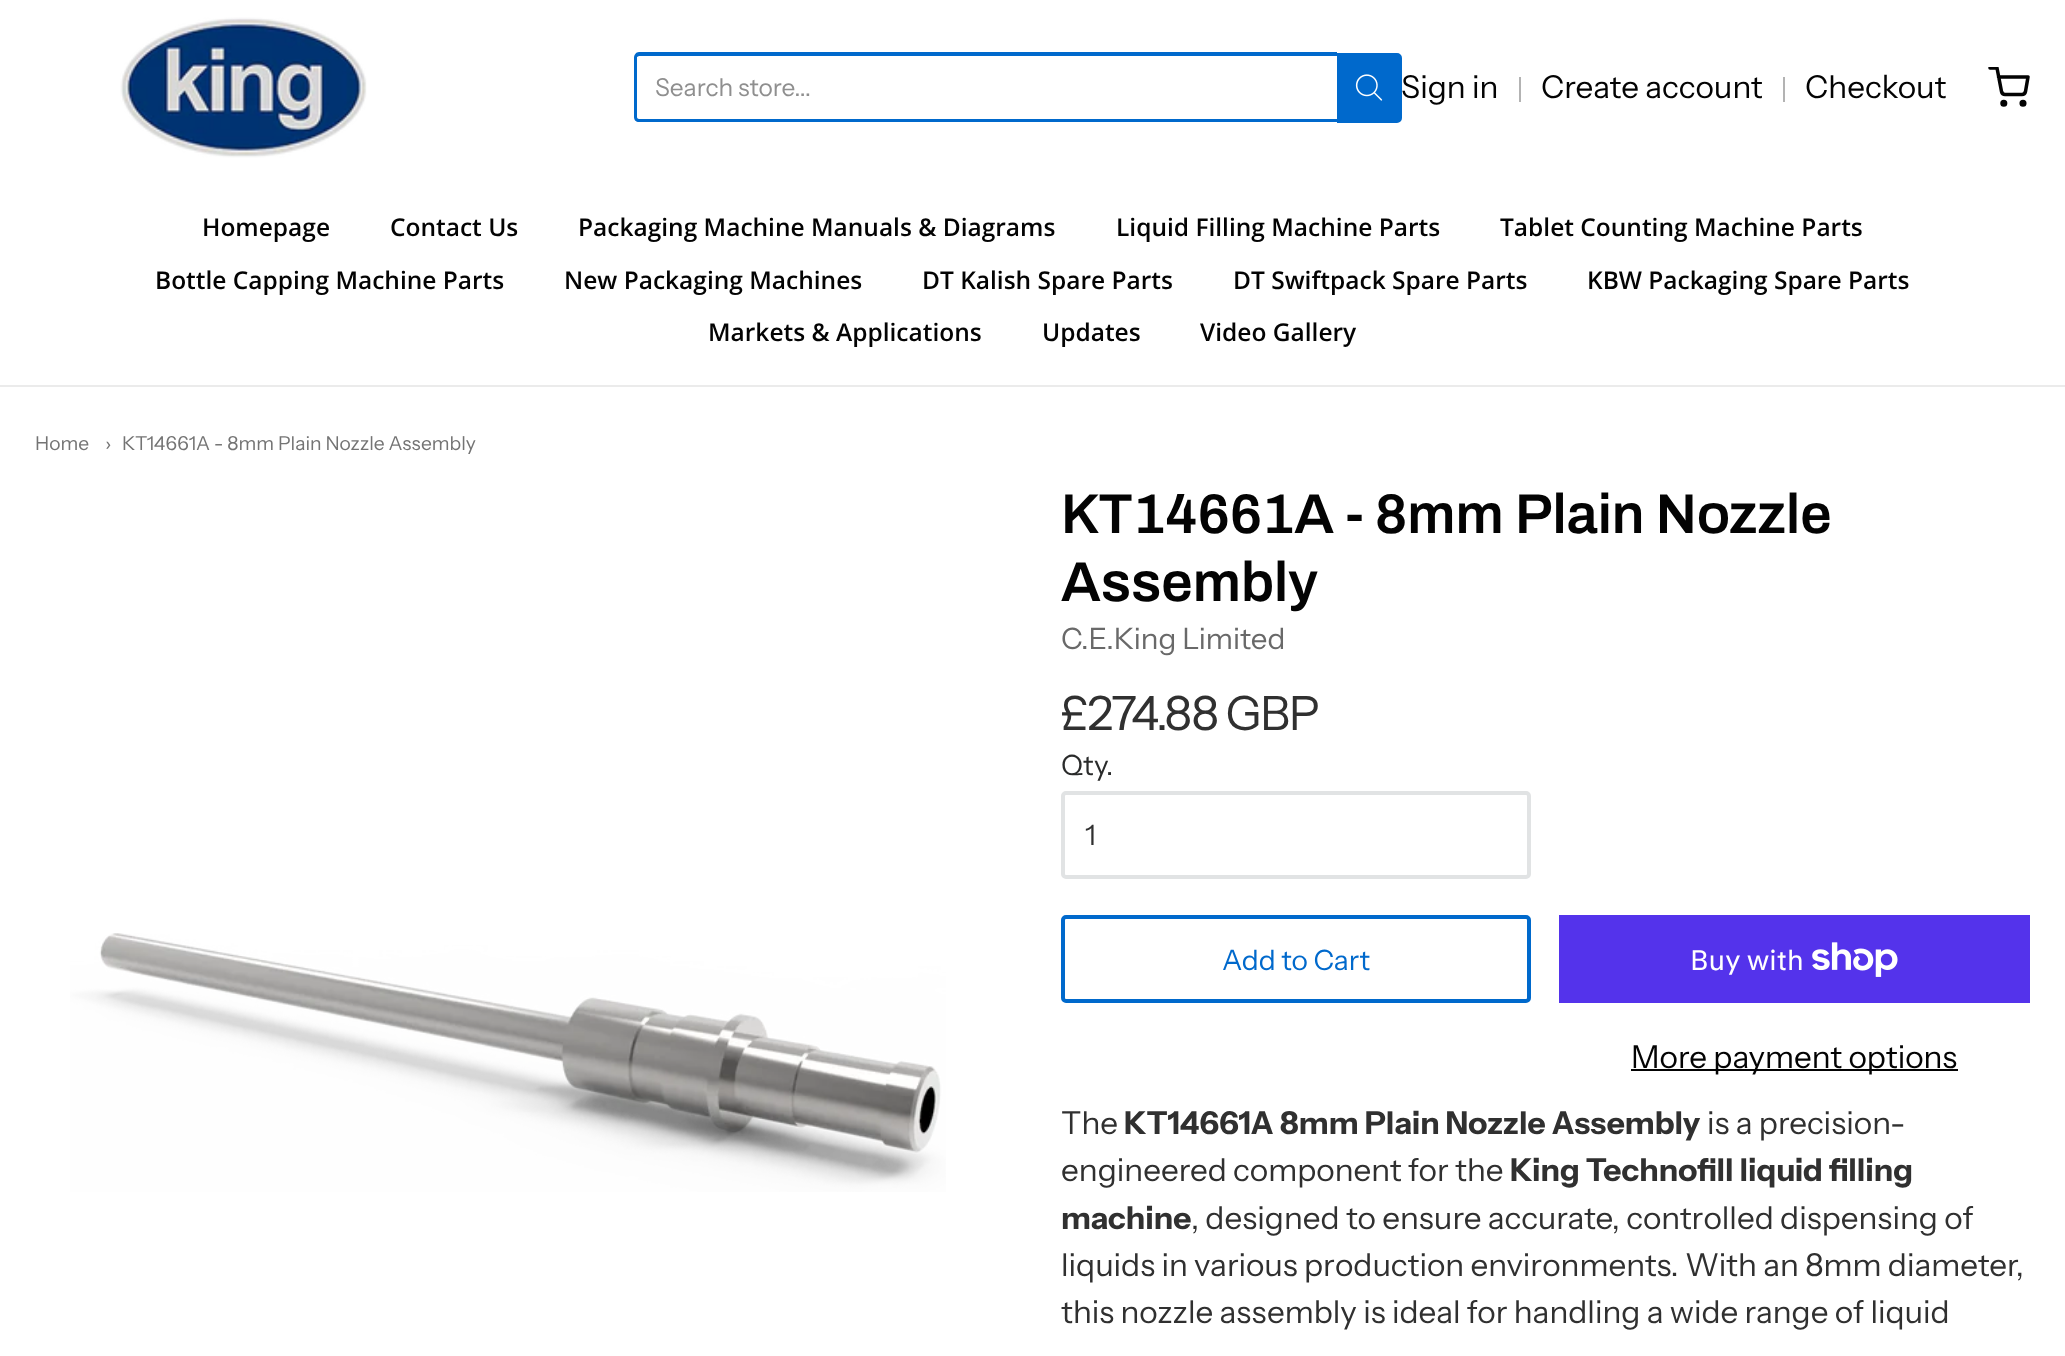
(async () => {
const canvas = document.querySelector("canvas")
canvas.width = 2065
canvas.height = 1356
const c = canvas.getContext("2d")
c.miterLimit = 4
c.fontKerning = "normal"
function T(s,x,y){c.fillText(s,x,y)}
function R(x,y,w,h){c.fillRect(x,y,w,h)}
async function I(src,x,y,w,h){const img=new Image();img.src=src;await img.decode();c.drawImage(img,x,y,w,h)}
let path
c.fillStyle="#fff"
R(0,0,2065,1356)
c.fillStyle="#ebebeb"
R(0,385,2065,2)
await I("1.png",120,17,247,141)
c.fillStyle="#0069cc"
path = new Path2D("M639 52h698v70h-698c-3 0-5-2-5-5v-59c0-3 2-6 5-6zm0 4h698v63h-698c-1 0-2-1-2-2v-60z")
c.fill(path,"evenodd")
c.font="24.5px Instrument Sans"
c.fillStyle="#8f8f8f"
T("Search store...",655,96)
c.fillStyle="#0069cc"
c.beginPath()
c.roundRect(1339,55,61,66,[0,3,3,0])
c.fill()
c.strokeStyle="#0069cc"
c.lineWidth=4
c.stroke()
await I("2.png",1355,74,28,27)
c.font="31.5px Instrument Sans"
c.fillStyle="#030303"
T("Sign in",1401,98)
c.fillStyle="#b3b3b3"
R(1519,77,2,25)
c.fillStyle="#030303"
T("Create account",1541,98)
c.fillStyle="#b3b3b3"
R(1783,77,2,25)
c.fillStyle="#030303"
T("Checkout",1805,98)
c.save()
c.beginPath()
c.rect(1988,67,42,42)
c.clip()
path = new Path2D("M1990 68h7l4.5 23.5c.5 2 1.5 3 3.5 3h17c1.5 0 3-1 3.5-3l2.5-14.5h-29.5")
c.strokeStyle="#030303"
c.lineWidth=3.5
c.lineCap="round"
c.lineJoin="round"
c.stroke(path)
c.restore()
c.beginPath()
c.arc(2003.8,103.2,1.8,0,7)
c.strokeStyle="#030303"
c.lineWidth=3.5
c.stroke()
c.beginPath()
c.arc(2023,103.2,1.8,0,7)
c.stroke()
c.font="600 24.5px Open Sans"
T("Homepage",202,236)
T("Contact Us",390,236)
T("Packaging Machine Manuals & Diagrams",578,236)
T("Liquid Filling Machine Parts",1116,236)
T("Tablet Counting Machine Parts",1500,236)
T("Bottle Capping Machine Parts",155,289)
T("New Packaging Machines",564,289)
T("DT Kalish Spare Parts",922,289)
T("DT Swiftpack Spare Parts",1233,289)
T("KBW Packaging Spare Parts",1587,289)
T("Markets & Applications",708,341)
T("Updates",1042,341)
T("Video Gallery",1200,341)
c.font="19.25px Instrument Sans"
c.fillStyle="#747474"
T("Home",35,450)
T("›",105,450)
T("KT14661A - 8mm Plain Nozzle Assembly",122,450)
await I("3.png",70,933,876,259)
c.font="600 56px Archivo"
c.fillStyle="#030303"
T("KT14661A - 8mm Plain Nozzle",1061,533)
T("Assembly",1061,601)
c.font="29.5px Instrument Sans"
c.fillStyle="#696969"
T("C.E.King Limited",1061,649)
c.letterSpacing="-1.5px"
c.font="47.25px Instrument Sans"
c.fillStyle="#303030"
T("£274.88 GBP",1061,730)
c.letterSpacing="0px"
c.font="28px Instrument Sans"
c.fillStyle="#2a2b2b"
T("Qty.",1061,775)
c.beginPath()
c.roundRect(1063,793,466,84,3)
c.strokeStyle="#e1e3e4"
c.lineWidth=4
c.stroke()
c.fillStyle="#303030"
T("1",1085,845)
c.beginPath()
c.roundRect(1063,917,466,84,3)
c.strokeStyle="#0069cc"
c.stroke()
c.fillStyle="#0069cc"
T("Add to Cart",1222,970)
c.fillStyle="#5433eb"
R(1559,915,471,88)
c.font="28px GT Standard"
c.fillStyle="#fff"
T("Buy with",1690,970)
await I("4.png",1812,942,86,35)
c.fillStyle="#030303"
R(1631,1069,327,2)
c.font="31.5px Instrument Sans"
T("More payment options",1631,1068)
c.fillStyle="#303030"
T("The",1061,1134)
c.font="bold 31.5px Instrument Sans"
T("KT14661A 8mm Plain Nozzle Assembly",1124,1134)
c.font="31.5px Instrument Sans"
T("is a precision-",1707,1134)
T("engineered component for the",1061,1181)
c.font="bold 31.5px Instrument Sans"
T("King Technofill liquid filling",1510,1181)
T("machine",1061,1229)
c.font="31.5px Instrument Sans"
T(", designed to ensure accurate, controlled dispensing of",1191,1229)
T("liquids in various production environments. With an 8mm diameter,",1061,1276)
T("this nozzle assembly is ideal for handling a wide range of liquid",1061,1323)
})()
